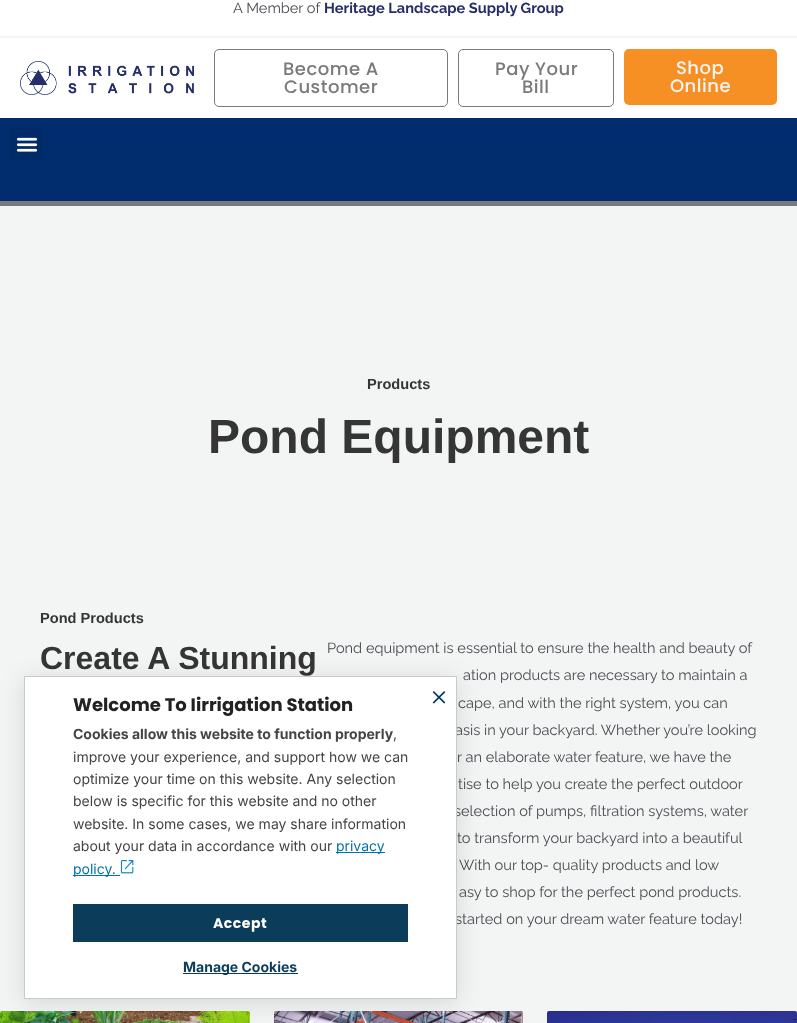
(async () => {
const canvas = document.querySelector("canvas")
canvas.width = 797
canvas.height = 1023
const c = canvas.getContext("2d")
c.miterLimit = 4
c.fontKerning = "normal"
function T(s,x,y){c.fillText(s,x,y)}
function R(x,y,w,h){c.fillRect(x,y,w,h)}
function Q(x,y,w,h,r){c.beginPath();c.roundRect(x,y,w,h,r);c.fill()}
async function I(src,x,y,w,h){const img=new Image();img.src=src;await img.decode();c.drawImage(img,x,y,w,h)}
c.fillStyle="#f3f5f5"
R(0,0,797,1023)
c.fillStyle="#fff"
R(0,0,797,36)
c.font="14.6px Raleway"
c.fillStyle="#494b51"
T("A Member of",233,13)
c.font="bold 14.6px Raleway"
c.fillStyle="#252e69"
T("Heritage Landscape Supply Group",324,13)
c.fillStyle="#fff"
R(0,38,797,80)
await I("1.png",20,61,174,34)
c.beginPath()
c.roundRect(214.5,49.5,233,57,4.5)
c.strokeStyle="#7a7a7a"
c.stroke()
c.letterSpacing="0.5px"
c.font="500 18px Poppins"
c.fillStyle="#7a7a7a"
T("Become A",283,75)
T("Customer",284,93)
c.beginPath()
c.roundRect(458.5,49.5,155,57,4.5)
c.stroke()
T("Pay Your",495,75)
T("Bill",522,93)
c.fillStyle="#f79024"
Q(624,49,153,56,5)
c.fillStyle="#f3f5f5"
T("Shop",676,74)
T("Online",670,92)
c.fillStyle="#012c6d"
R(0,118,797,83)
c.fillStyle="#012a68"
Q(10,128,33,33,3)
await I("2.png",16,137,22,15)
c.fillStyle="#7a7a7a"
R(0,201,797,5)
c.letterSpacing="0px"
c.font="bold 14.6px Liberation Sans"
c.fillStyle="#363535"
T("Products",367,389)
c.font="bold 48px Liberation Sans"
T("Pond Equipment",208,453)
c.font="bold 14.6px Liberation Sans"
T("Pond Products",40,623)
c.font="bold 32px Liberation Sans"
T("Create A Stunning",40,669)
c.font="14.6px Raleway"
c.fillStyle="#494b51"
T("Pond equipment is essential to ensure the health and beauty of",327,653)
T("ation products are necessary to maintain a",463,680)
T("cape, and with the right system, you can",458,708)
T("asis in your backyard. Whether you’re looking",455,735)
T("r an elaborate water feature, we have the",457,762)
T("tise to help you create the perfect outdoor",458,789)
T("selection of pumps, filtration systems, water",454,816)
T("to transform your backyard into a beautiful",457,843)
T("With our top- quality products and low",459,870)
T("asy to shop for the perfect pond products.",459,897)
T("started on your dream water feature today!",455,924)
await I("3.png",0,1011,250,12)
await I("4.png",274,1011,249,12)
await I("5.png",547,1011,250,12)
c.fillStyle="#0000001f"
c.filter="blur(12px)"
c.beginPath()
c.rect(24,680,433,323)
c.fill()
c.filter="none"
c.fillStyle="#fff"
c.beginPath()
c.rect(24.5,676.5,432,322)
c.fill()
c.strokeStyle="#c9c9c9"
c.stroke()
c.font="bold 18px Poppins"
c.fillStyle="#222"
T("Welcome To Iirrigation Station",73,711)
c.font="bold 14px Inter"
c.fillStyle="#444"
T("Cookies allow this website to function properly",73,739)
c.font="14px Inter"
T(",",393,739)
T("improve your experience, and support how we can",73,762)
T("optimize your time on this website. Any selection",73,784)
T("below is specific for this website and no other",73,806)
T("website. In some cases, we may share information",73,829)
T("about your data in accordance with our",73,851)
c.fillStyle="#0073aa"
R(336,852,49,1)
T("privacy",336,851)
R(73,875,47,1)
T("policy.",73,874)
await I("6.png",120,860,14,14)
c.fillStyle="#0b3c59"
R(73,904,335,38)
c.letterSpacing="0.5px"
c.font="bold 14px Poppins"
c.fillStyle="#fff"
T("Accept",213,928)
c.fillStyle="#0b3c59"
R(183,973,115,1)
c.letterSpacing="0px"
c.font="bold 14px Inter"
T("Manage Cookies",183,972)
await I("7.png",432,691,14,13)
})()
